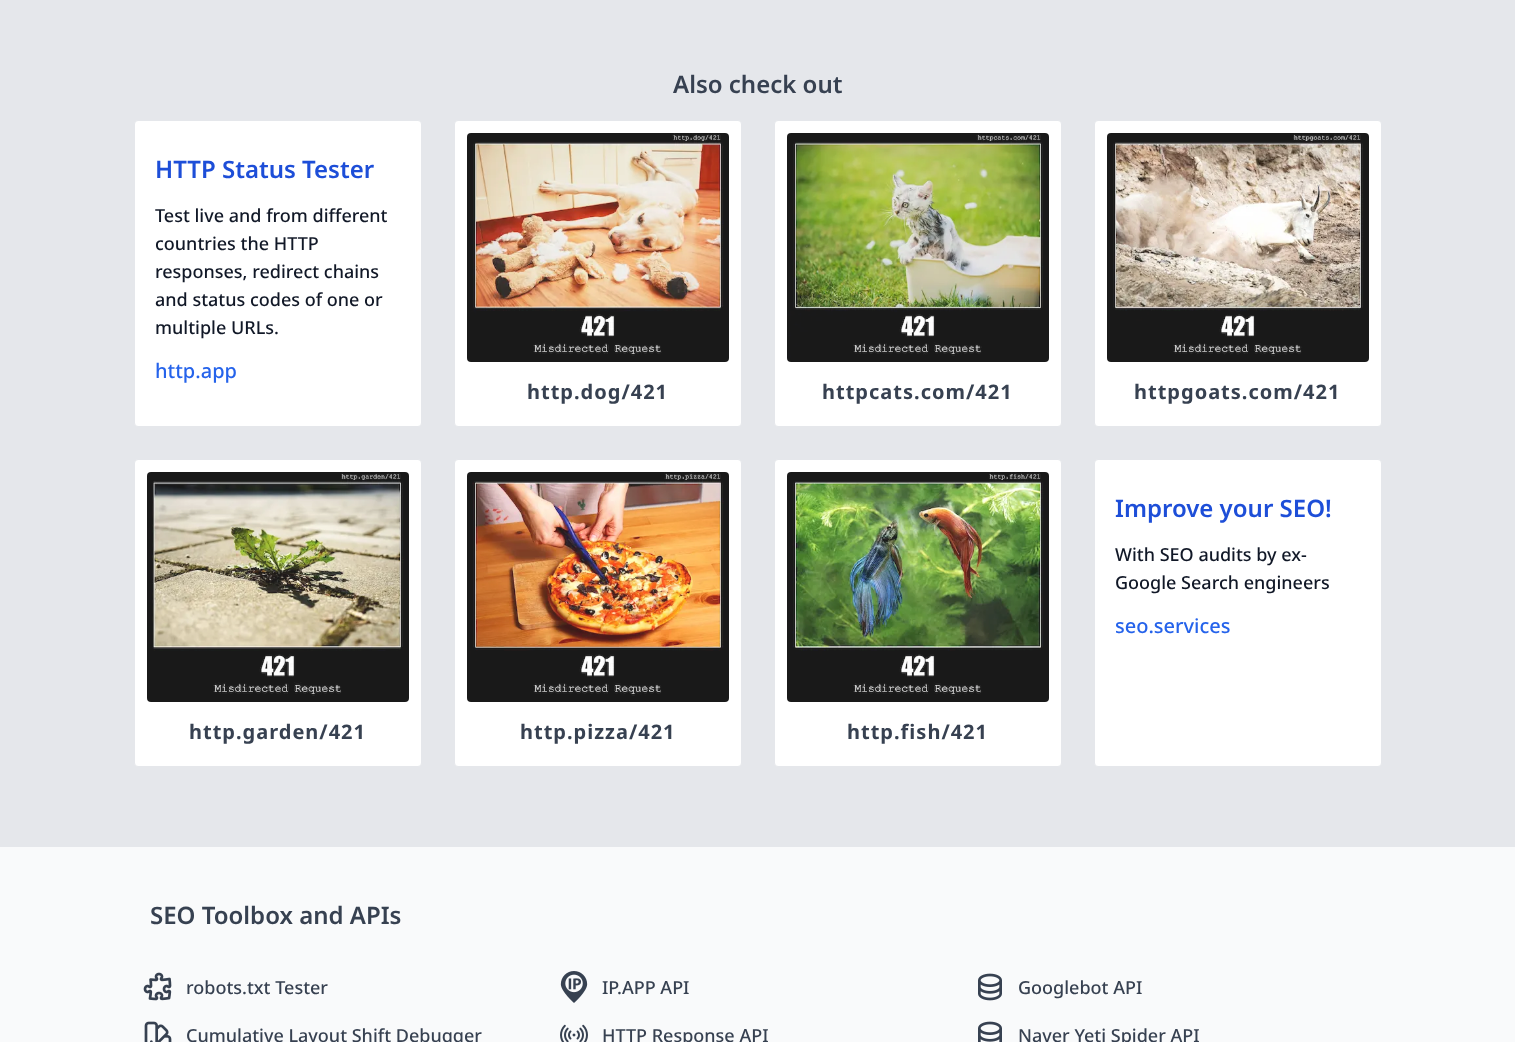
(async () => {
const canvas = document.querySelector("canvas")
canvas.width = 1515
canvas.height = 1042
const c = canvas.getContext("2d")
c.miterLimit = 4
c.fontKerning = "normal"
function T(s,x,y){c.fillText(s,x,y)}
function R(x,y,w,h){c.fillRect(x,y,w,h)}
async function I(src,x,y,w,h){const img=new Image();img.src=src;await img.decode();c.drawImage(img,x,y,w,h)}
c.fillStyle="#f9fafb"
R(0,0,1515,1042)
c.fillStyle="#e5e7eb"
R(0,0,1515,847)
c.font="600 24px Noto Sans"
c.fillStyle="#374151"
T("Also check out",673,93)
c.fillStyle="#fff"
c.beginPath()
c.roundRect(134.5,120.5,287,306,3.5)
c.fill()
c.strokeStyle="#e5e7eb"
c.stroke()
c.fillStyle="#1d4ed8"
T("HTTP Status Tester",155,178)
c.font="500 18px Noto Sans"
c.fillStyle="#111827"
T("Test live and from different",155,222)
T("countries the HTTP",155,250)
T("responses, redirect chains",155,278)
T("and status codes of one or",155,306)
T("multiple URLs.",155,334)
c.font="500 20px Noto Sans"
c.fillStyle="#2563eb"
T("http.app",155,378)
c.fillStyle="#fff"
c.beginPath()
c.roundRect(454.5,120.5,287,306,3.5)
c.fill()
c.stroke()
await I("1.png",467,133,262,229)
c.letterSpacing="1px"
c.font="bold 20px Noto Sans"
c.fillStyle="#374151"
T("http.dog/421",527,399)
c.fillStyle="#fff"
c.beginPath()
c.roundRect(774.5,120.5,287,306,3.5)
c.fill()
c.stroke()
await I("2.png",787,133,262,229)
c.fillStyle="#374151"
T("httpcats.com/421",822,399)
c.fillStyle="#fff"
c.beginPath()
c.roundRect(1094.5,120.5,287,306,3.5)
c.fill()
c.stroke()
await I("3.png",1107,133,262,229)
c.fillStyle="#374151"
T("httpgoats.com/421",1134,399)
c.fillStyle="#fff"
c.beginPath()
c.roundRect(1094.5,459.5,287,307,3.5)
c.fill()
c.stroke()
c.letterSpacing="0px"
c.font="600 24px Noto Sans"
c.fillStyle="#1d4ed8"
T("Improve your SEO!",1115,517)
c.font="500 18px Noto Sans"
c.fillStyle="#111827"
T("With SEO audits by ex-",1115,561)
T("Google Search engineers",1115,589)
c.font="500 20px Noto Sans"
c.fillStyle="#2563eb"
T("seo.services",1115,633)
c.fillStyle="#fff"
c.beginPath()
c.roundRect(134.5,459.5,287,307,3.5)
c.fill()
c.stroke()
await I("4.png",147,472,262,230)
c.letterSpacing="1px"
c.font="bold 20px Noto Sans"
c.fillStyle="#374151"
T("http.garden/421",189,739)
c.fillStyle="#fff"
c.beginPath()
c.roundRect(454.5,459.5,287,307,3.5)
c.fill()
c.stroke()
await I("5.png",467,472,262,230)
c.fillStyle="#374151"
T("http.pizza/421",520,739)
c.fillStyle="#fff"
c.beginPath()
c.roundRect(774.5,459.5,287,307,3.5)
c.fill()
c.stroke()
await I("6.png",787,472,262,230)
c.fillStyle="#374151"
T("http.fish/421",847,739)
c.letterSpacing="0px"
c.font="600 24px Noto Sans"
T("SEO Toolbox and APIs",150,924)
await I("7.png",143,972,29,29)
c.font="500 18px Noto Sans"
T("robots.txt Tester",186,994)
await I("8.png",144,1021,28,21)
T("Cumulative Layout Shift Debugger",186,1042)
await I("9.png",560,971,28,32)
T("IP.APP API",602,994)
await I("10.png",560,1024,28,18)
T("HTTP Response API",602,1042)
await I("11.png",978,973,24,28)
T("Googlebot API",1018,994)
await I("12.png",978,1021,24,21)
T("Naver Yeti Spider API",1018,1042)
})()
